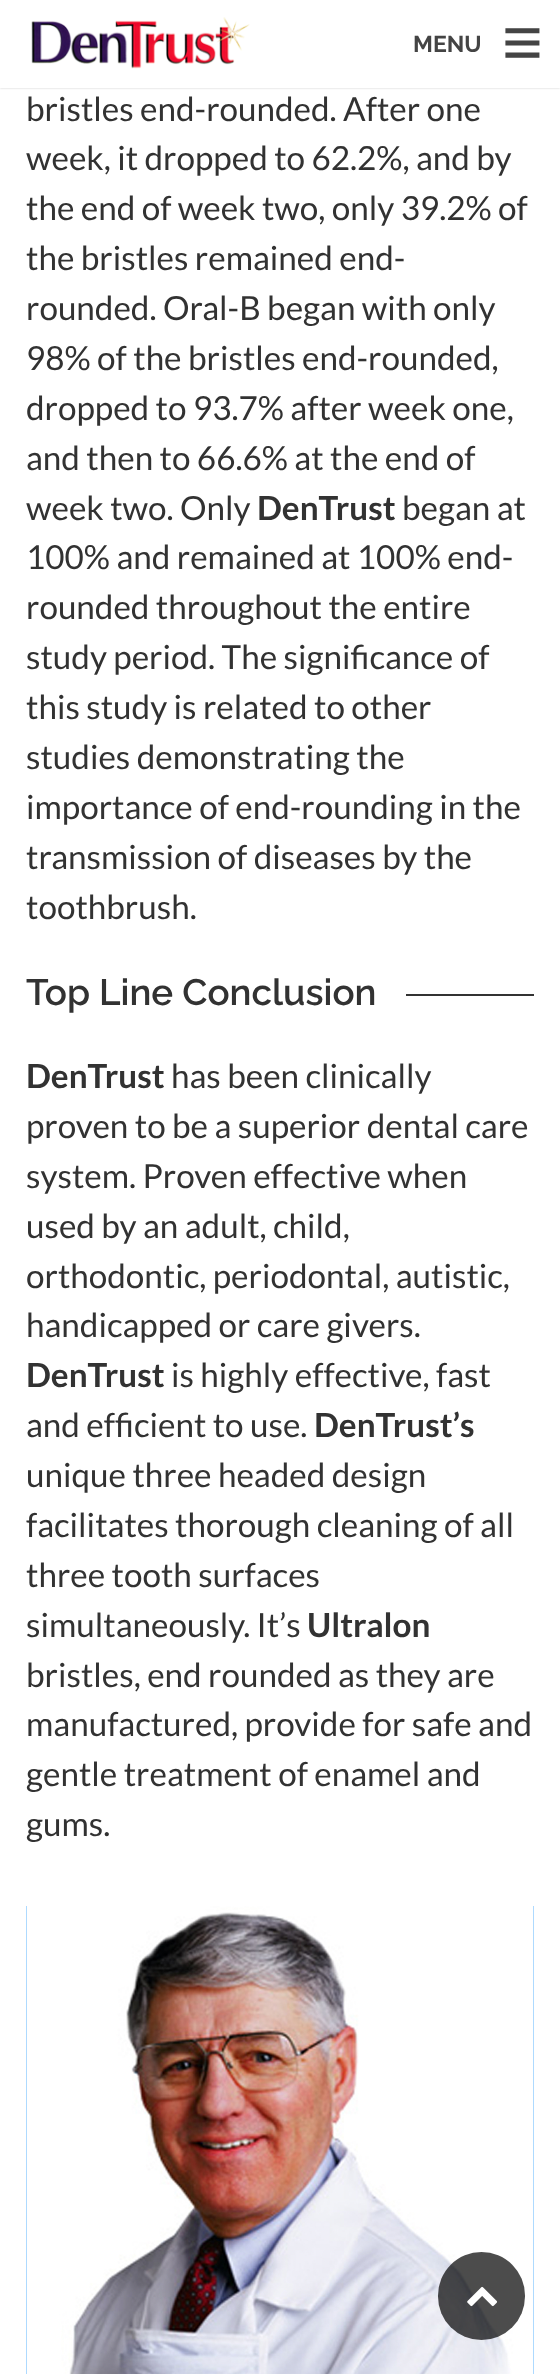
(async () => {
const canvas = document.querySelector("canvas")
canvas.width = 560
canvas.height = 2374
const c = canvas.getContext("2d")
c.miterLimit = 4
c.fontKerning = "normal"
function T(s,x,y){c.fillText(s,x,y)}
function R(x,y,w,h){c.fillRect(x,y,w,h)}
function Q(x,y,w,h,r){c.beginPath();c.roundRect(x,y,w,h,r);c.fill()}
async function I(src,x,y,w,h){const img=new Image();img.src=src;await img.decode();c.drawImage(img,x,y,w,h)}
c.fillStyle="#fff"
R(0,0,560,2374)
c.fillStyle="#00000033"
c.filter="blur(1px)"
c.beginPath()
c.rect(0,0,560,88)
c.fill()
c.filter="none"
c.fillStyle="#fff"
R(0,0,560,88)
await I("1.png",31,17,219,52)
c.font="bold 23px Raleway"
c.fillStyle="#444"
T("MENU",413,52)
c.font="bold 70px Liberation Sans"
T("≡",502,66)
c.font="33.25px Lato"
c.fillStyle="#323232"
T("bristles end-rounded. After one",26,121)
T("week, it dropped to 62.2%, and by",26,170)
T("the end of week two, only 39.2% of",26,220)
T("the bristles remained end-",26,270)
T("rounded. Oral-B began with only",26,320)
T("98% of the bristles end-rounded,",26,370)
T("dropped to 93.7% after week one,",26,420)
T("and then to 66.6% at the end of",26,470)
T("week two. Only",26,520)
c.font="bold 33.25px Lato"
T("DenTrust",257,520)
c.font="33.25px Lato"
T("began at",402,520)
T("100% and remained at 100% end-",26,569)
T("rounded throughout the entire",26,619)
T("study period. The significance of",26,669)
T("this study is related to other",26,719)
T("studies demonstrating the",26,769)
T("importance of end-rounding in the",26,819)
T("transmission of diseases by the",26,869)
T("toothbrush.",26,919)
c.font="600 36.75px Raleway"
T("Top Line Conclusion",26,1005)
R(406,994,128,2)
c.font="bold 33.25px Lato"
T("DenTrust",26,1088)
c.font="33.25px Lato"
T("has been clinically",171,1088)
T("proven to be a superior dental care",26,1138)
T("system. Proven effective when",26,1188)
T("used by an adult, child,",26,1238)
T("orthodontic, periodontal, autistic,",26,1288)
T("handicapped or care givers.",26,1337)
c.font="bold 33.25px Lato"
T("DenTrust",26,1387)
c.font="33.25px Lato"
T("is highly effective, fast",171,1387)
T("and efficient to use.",26,1437)
c.font="bold 33.25px Lato"
T("DenTrust’s",314,1437)
c.font="33.25px Lato"
T("unique three headed design",26,1487)
T("facilitates thorough cleaning of all",26,1537)
T("three tooth surfaces",26,1587)
T("simultaneously. It’s",26,1637)
c.font="bold 33.25px Lato"
T("Ultralon",307,1637)
c.font="33.25px Lato"
T("bristles, end rounded as they are",26,1687)
T("manufactured, provide for safe and",26,1736)
T("gentle treatment of enamel and",26,1786)
T("gums.",26,1836)
c.fillStyle="#45aaff"
R(26,1906,508,468)
await I("2.png",26,1906,508,468)
c.fillStyle="#000000b3"
Q(438,2252,87,88,43.5)
await I("3.png",467,2286,31,21)
})()
